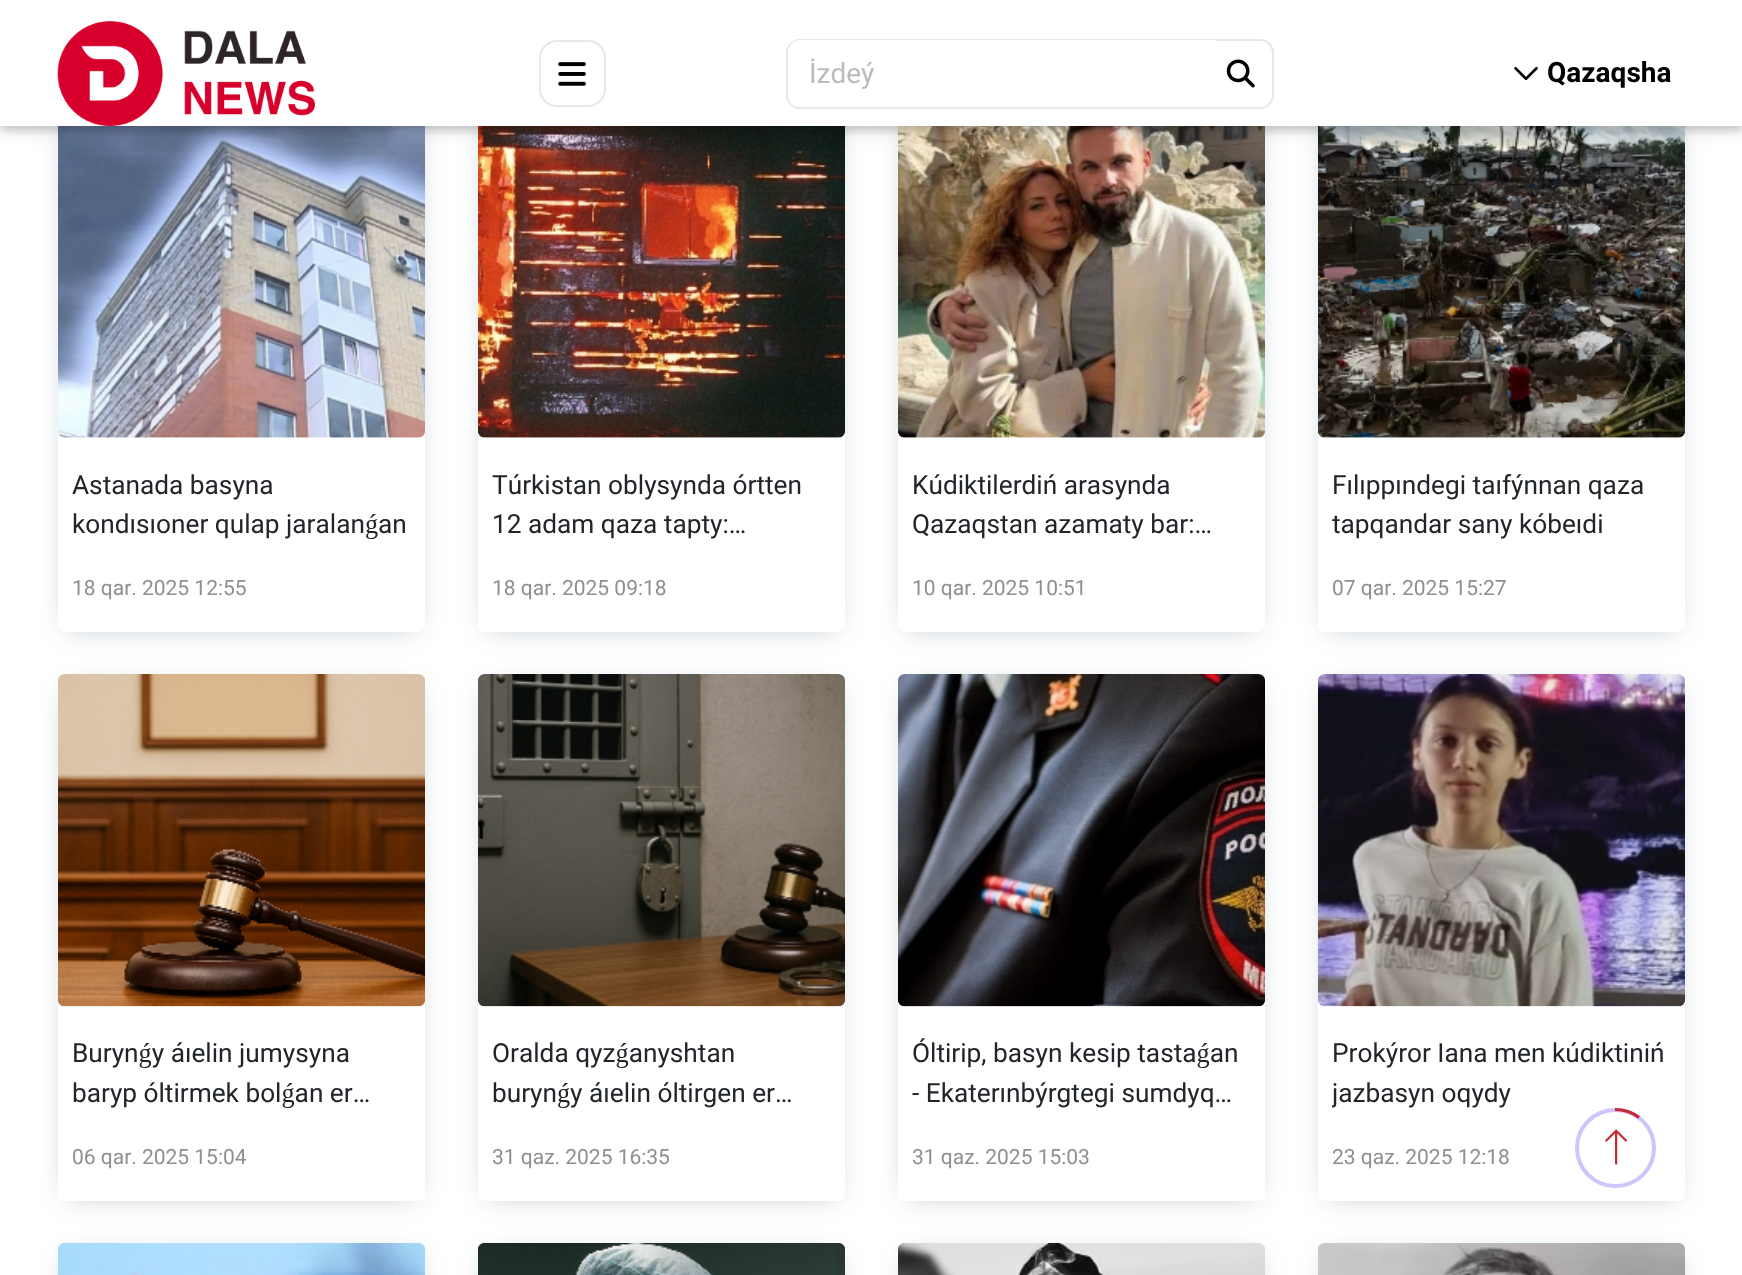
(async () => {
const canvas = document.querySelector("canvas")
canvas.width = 1742
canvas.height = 1275
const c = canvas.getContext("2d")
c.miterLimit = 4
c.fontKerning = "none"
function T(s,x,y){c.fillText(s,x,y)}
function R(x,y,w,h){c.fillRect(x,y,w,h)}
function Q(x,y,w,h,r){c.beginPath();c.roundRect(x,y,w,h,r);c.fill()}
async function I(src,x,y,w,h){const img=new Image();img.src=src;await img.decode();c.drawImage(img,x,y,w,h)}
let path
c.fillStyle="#fff"
R(0,0,1742,1275)
c.fillStyle="#223c5052"
c.filter="blur(14px)"
c.beginPath()
c.rect(68,121,347,506)
c.fill()
c.filter="none"
c.fillStyle="#fff"
Q(58,105,367,527,7)
await I("5.png",58,126,367,312)
c.fillStyle="#223c5052"
c.filter="blur(14px)"
c.beginPath()
c.rect(488,121,347,506)
c.fill()
c.filter="none"
c.fillStyle="#fff"
Q(478,105,367,527,7)
await I("6.png",478,126,367,312)
c.fillStyle="#223c5052"
c.filter="blur(14px)"
c.beginPath()
c.rect(908,121,347,506)
c.fill()
c.filter="none"
c.fillStyle="#fff"
Q(898,105,367,527,7)
await I("7.png",898,126,367,312)
c.fillStyle="#223c5052"
c.filter="blur(14px)"
c.beginPath()
c.rect(1328,121,347,506)
c.fill()
c.filter="none"
c.fillStyle="#fff"
Q(1318,105,367,527,7)
await I("8.png",1318,126,367,312)
c.fillStyle="#0000001f"
c.filter="blur(9px)"
c.beginPath()
c.rect(0,4,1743,126)
c.fill()
c.filter="none"
c.fillStyle="#00000029"
c.filter="blur(4.5px)"
c.beginPath()
c.rect(0,4,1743,126)
c.fill()
c.filter="none"
c.fillStyle="#fff"
R(0,0,1742,126)
await I("1.png",57,21,258,105)
c.beginPath()
c.roundRect(540,41,65,65,17)
c.strokeStyle="#e9e8e8"
c.lineWidth=2
c.stroke()
await I("2.png",558,62,28,24)
c.beginPath()
c.roundRect(787,40,486,68,13)
c.stroke()
c.beginPath()
c.roundRect(788,40,428,67,[12,0,0,12])
c.fill()
c.font="28px Roboto"
c.fillStyle="#bbbbbc"
T("İzdeý",809,83)
await I("3.png",1226,59,29,29)
await I("4.png",1514,66,24,14)
c.font="bold 28px Roboto"
c.fillStyle="#000"
T("Qazaqsha",1547,82)
c.font="26.25px Roboto"
c.fillStyle="#212529"
T("Astanada basyna",72,494)
T("kondısıoner qulap jaralanǵan",72,533)
c.font="21px Roboto"
c.fillStyle="#8f8f8f"
T("18 qar. 2025 12:55",72,595)
c.font="26.25px Roboto"
c.fillStyle="#212529"
T("Túrkistan oblysynda órtten",492,494)
T("12 adam qaza tapty:…",492,533)
c.font="21px Roboto"
c.fillStyle="#8f8f8f"
T("18 qar. 2025 09:18",492,595)
c.font="26.25px Roboto"
c.fillStyle="#212529"
T("Kúdiktilerdiń arasynda",912,494)
T("Qazaqstan azamaty bar:…",912,533)
c.font="21px Roboto"
c.fillStyle="#8f8f8f"
T("10 qar. 2025 10:51",912,595)
c.font="26.25px Roboto"
c.fillStyle="#212529"
T("Fılıppındegi taıfýnnan qaza",1332,494)
T("tapqandar sany kóbeıdi",1332,533)
c.font="21px Roboto"
c.fillStyle="#8f8f8f"
T("07 qar. 2025 15:27",1332,595)
c.fillStyle="#223c5052"
c.filter="blur(14px)"
c.beginPath()
c.rect(68,690,347,505)
c.fill()
c.filter="none"
c.fillStyle="#fff"
Q(58,674,367,527,7)
await I("9.png",58,674,367,333)
c.font="26.25px Roboto"
c.fillStyle="#212529"
T("Burynǵy áıelin jumysyna",72,1062)
T("baryp óltirmek bolǵan er…",72,1102)
c.font="21px Roboto"
c.fillStyle="#8f8f8f"
T("06 qar. 2025 15:04",72,1164)
c.fillStyle="#223c5052"
c.filter="blur(14px)"
c.beginPath()
c.rect(488,690,347,505)
c.fill()
c.filter="none"
c.fillStyle="#fff"
Q(478,674,367,527,7)
await I("10.png",478,674,367,333)
c.font="26.25px Roboto"
c.fillStyle="#212529"
T("Oralda qyzǵanyshtan",492,1062)
T("burynǵy áıelin óltirgen er…",492,1102)
c.font="21px Roboto"
c.fillStyle="#8f8f8f"
T("31 qaz. 2025 16:35",492,1164)
c.fillStyle="#223c5052"
c.filter="blur(14px)"
c.beginPath()
c.rect(908,690,347,505)
c.fill()
c.filter="none"
c.fillStyle="#fff"
Q(898,674,367,527,7)
await I("11.png",898,674,367,333)
c.font="26.25px Roboto"
c.fillStyle="#212529"
T("Óltirip, basyn kesip tastaǵan",912,1062)
T("- Ekaterınbýrgtegi sumdyq…",912,1102)
c.font="21px Roboto"
c.fillStyle="#8f8f8f"
T("31 qaz. 2025 15:03",912,1164)
c.fillStyle="#223c5052"
c.filter="blur(14px)"
c.beginPath()
c.rect(1328,690,347,505)
c.fill()
c.filter="none"
c.fillStyle="#fff"
Q(1318,674,367,527,7)
await I("12.png",1318,674,367,333)
c.font="26.25px Roboto"
c.fillStyle="#212529"
T("Prokýror Iana men kúdiktiniń",1332,1062)
c.save()
c.beginPath()
c.rect(1332,1034,339,79)
c.clip()
T("jazbasyn oqydy",1332,1102)
c.restore()
c.font="21px Roboto"
c.fillStyle="#8f8f8f"
T("23 qaz. 2025 12:18",1332,1164)
c.fillStyle="#223c5052"
c.filter="blur(14px)"
c.beginPath()
c.rect(68,1258,347,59)
c.fill()
c.filter="none"
await I("13.png",58,1243,367,32)
c.filter="blur(14px)"
c.beginPath()
c.rect(488,1258,347,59)
c.fill()
c.filter="none"
await I("14.png",478,1243,367,32)
c.filter="blur(14px)"
c.beginPath()
c.rect(908,1258,347,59)
c.fill()
c.filter="none"
await I("15.png",898,1243,367,32)
c.filter="blur(14px)"
c.beginPath()
c.rect(1328,1258,347,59)
c.fill()
c.filter="none"
await I("16.png",1318,1243,367,32)
c.beginPath()
c.roundRect(1577,1110,77,76,38)
c.strokeStyle="#cfc4fe"
c.lineWidth=4
c.stroke()
path = new Path2D("M1615 1109.5c9 0 17.5 3 24 8")
c.strokeStyle="#c52934"
c.lineWidth=3.2
c.stroke(path)
await I("17.png",1605,1129,22,36)
})()
